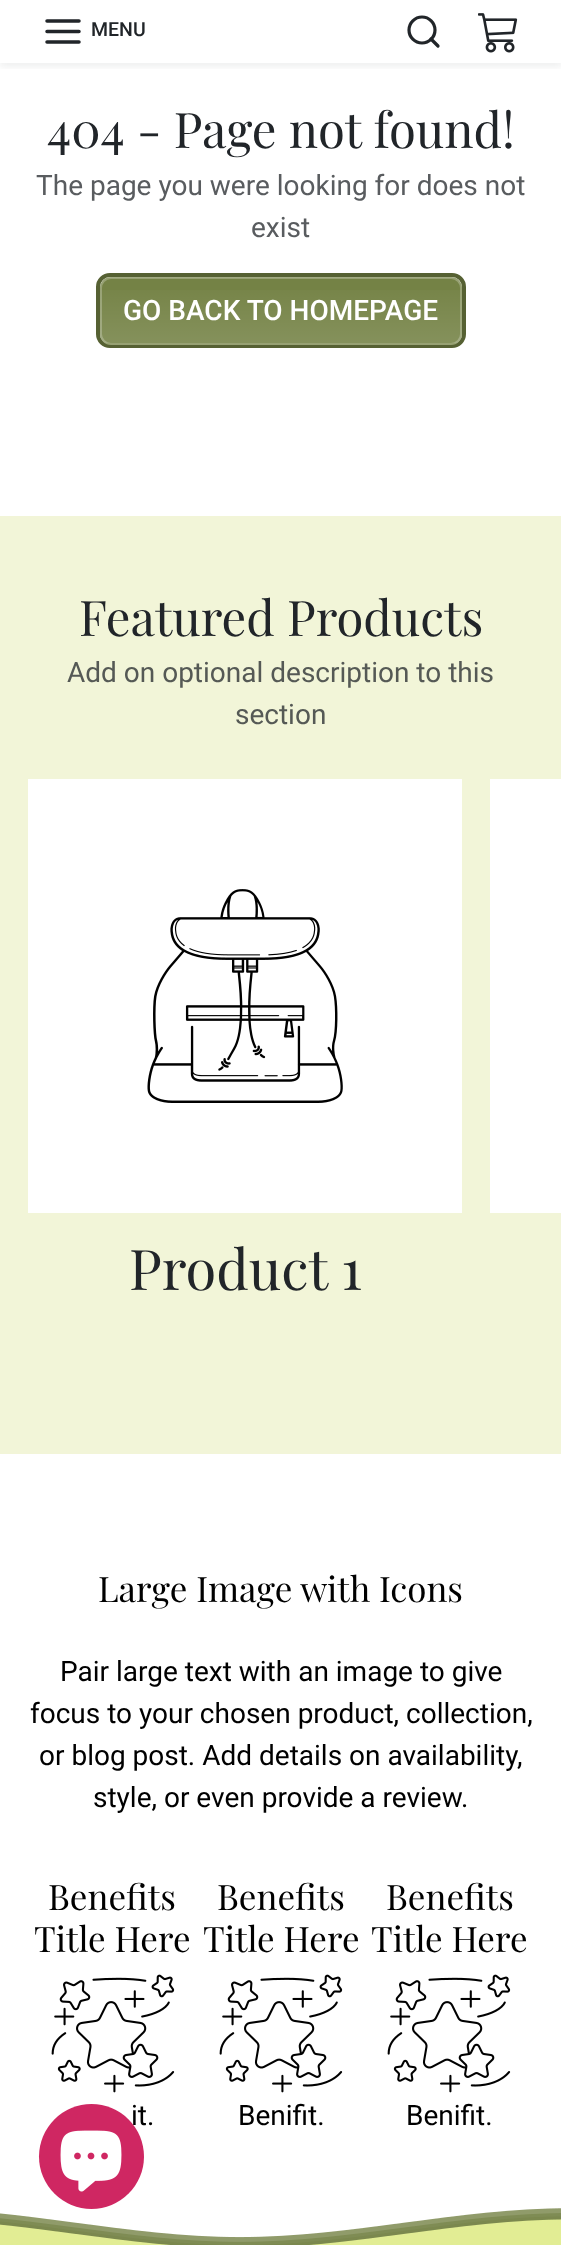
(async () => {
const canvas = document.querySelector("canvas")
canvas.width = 561
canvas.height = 2245
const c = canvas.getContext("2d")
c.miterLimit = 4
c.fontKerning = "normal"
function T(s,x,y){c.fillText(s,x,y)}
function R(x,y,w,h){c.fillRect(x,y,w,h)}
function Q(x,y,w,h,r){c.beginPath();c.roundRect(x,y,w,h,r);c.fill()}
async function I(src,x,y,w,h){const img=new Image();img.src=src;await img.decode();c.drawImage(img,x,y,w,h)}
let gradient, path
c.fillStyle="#f2f5d8"
R(0,0,561,2245)
c.fillStyle="#fff"
R(0,0,561,516)
c.save()
c.beginPath()
c.rect(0,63,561,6)
c.clip()
c.fillStyle="#21252912"
c.filter="blur(3.5px)"
c.beginPath()
c.rect(0,4,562,63)
c.fill()
c.filter="none"
c.restore()
path = new Path2D("M47 31.5h32m-32-10.5h32m-32 21h32")
c.strokeStyle="#212529"
c.lineWidth=3.5
c.lineCap="round"
c.lineJoin="round"
c.stroke(path)
c.font="500 19.5px Roboto"
c.fillStyle="#212529"
T("MENU",91,36)
c.beginPath()
c.arc(422,30,13,0,7)
c.lineWidth=3.2
c.stroke()
path = new Path2D("M438 46l-7-7")
c.stroke(path)
await I("1.png",478,13,40,40)
c.font="49px Playfair Display"
T("404 - Page not found!",47,148)
c.font="28px Roboto"
c.fillStyle="#595c5f"
T("The page you were looking for does not",36,195)
T("exist",251,237)
c.beginPath()
c.roundRect(98,275,366,71,12)
c.strokeStyle="#566133"
c.lineWidth=4
c.lineJoin="miter"
c.stroke()
c.fillStyle="#748245"
Q(100,277,362,68,11)
c.save()
c.beginPath()
c.roundRect(100,277,362,68,11)
c.clip()
gradient = c.createLinearGradient(281,213,281,278)
gradient.addColorStop(0,"#ffffff00")
gradient.addColorStop(1,"#ffffff1f")
c.fillStyle = gradient
R(100,277,362,1)
gradient = c.createLinearGradient(281,278,281,343)
gradient.addColorStop(0,"#ffffff00")
gradient.addColorStop(1,"#ffffff1f")
c.fillStyle = gradient
R(100,290,362,53)
c.restore()
c.beginPath()
c.roundRect(101,278,360,66,10)
c.strokeStyle="#ffffff40"
c.lineWidth=2
c.stroke()
c.font="500 28px Roboto"
c.fillStyle="#fff"
T("GO BACK TO HOMEPAGE",123,320)
c.font="49px Playfair Display"
c.fillStyle="#212529"
T("Featured Products",79,636)
c.font="28px Roboto"
c.fillStyle="#555955"
T("Add on optional description to this",67,682)
T("section",235,724)
c.fillStyle="#fff"
R(490,779,71,434)
R(28,779,434,434)
await I("2.png",147,889,196,214)
c.font="56px Playfair Display"
c.fillStyle="#212529"
T("Product 1",129,1290)
c.fillStyle="#fff"
R(0,1454,561,791)
c.font="35px Playfair Display"
c.fillStyle="#000"
T("Large Image with Icons",98,1602)
c.font="28px Roboto"
T("Pair large text with an image to give",60,1681)
T("focus to your chosen product, collection,",30,1723)
T("or blog post. Add details on availability,",39,1765)
T("style, or even provide a review.",93,1807)
c.font="35px Playfair Display"
T("Benefits",48,1910)
T("Title Here",34,1952)
await I("3.png",51,1974,124,119)
c.font="28px Roboto"
T("it.",131,2125)
c.font="35px Playfair Display"
T("Benefits",217,1910)
T("Title Here",203,1952)
await I("3.png",219,1974,124,119)
c.font="28px Roboto"
T("Benifit.",238,2125)
c.font="35px Playfair Display"
T("Benefits",386,1910)
T("Title Here",371,1952)
await I("3.png",387,1974,124,119)
c.font="28px Roboto"
T("Benifit.",406,2125)
await I("5.png",0,2208,561,37)
c.fillStyle="#cf2762"
c.beginPath()
c.arc(91.5,2156.5,52.5,0,7)
c.fill()
await I("4.png",60,2130,62,62)
})()
